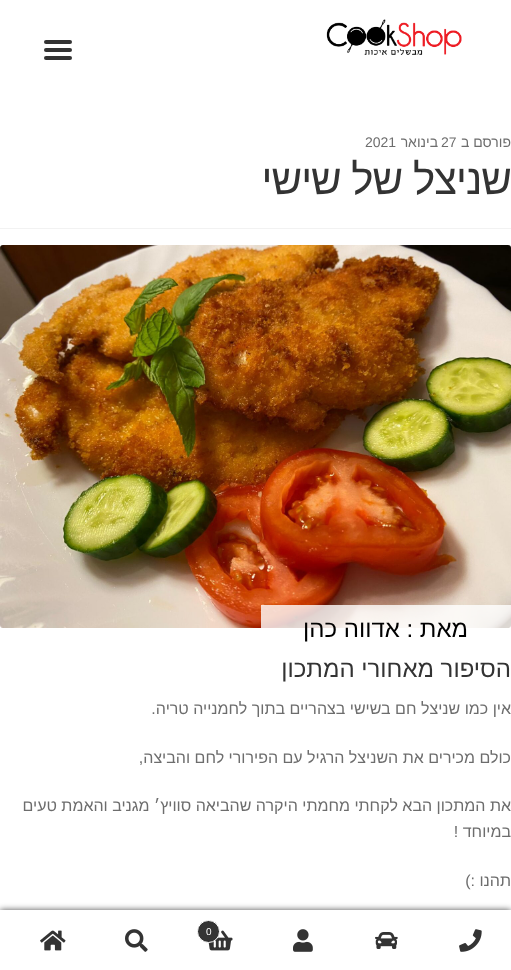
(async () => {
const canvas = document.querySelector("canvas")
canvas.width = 511
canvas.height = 970
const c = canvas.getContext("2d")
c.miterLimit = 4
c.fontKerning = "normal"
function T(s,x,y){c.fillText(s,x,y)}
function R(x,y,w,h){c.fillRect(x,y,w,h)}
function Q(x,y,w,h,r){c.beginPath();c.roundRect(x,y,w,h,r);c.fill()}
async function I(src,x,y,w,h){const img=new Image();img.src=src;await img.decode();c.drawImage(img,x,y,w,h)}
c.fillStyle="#fff"
R(0,0,511,970)
await I("1.png",326,19,136,36)
c.fillStyle="#333"
Q(44,40,28,4,2)
Q(44,48,28,4,2)
Q(44,56,28,4,2)
c.fillStyle="#f2f2f2"
R(0,228,511,1)
c.direction="rtl"
c.font="14px Liberation Sans"
c.fillStyle="#6d6d6d"
T("פורסם ב",511,147)
c.direction="ltr"
T("27",441,147)
c.direction="rtl"
T("בינואר",438,147)
c.direction="ltr"
T("2021",365,147)
c.letterSpacing="-1px"
c.direction="rtl"
c.font="42px Liberation Sans"
c.fillStyle="#333"
T("שניצל של שישי",511,194)
await I("2.png",0,245,511,383)
c.fillStyle="#ffffffcc"
R(261,605,250,23)
c.letterSpacing="0px"
c.font="24px Liberation Sans"
c.fillStyle="#000"
T("מאת : אדווה כהן",468,637)
c.fillStyle="#333"
T("הסיפור מאחורי המתכון",511,677)
c.font="16px Liberation Sans"
c.fillStyle="#6d6d6d"
T("אין כמו שניצל חם בשישי בצהריים בתוך לחמנייה טריה.",511,714)
T("כולם מכירים את השניצל הרגיל עם הפירורי לחם והביצה,",511,763)
T("את המתכון הבא לקחתי מחמתי היקרה שהביאה סוויץ׳ מגניב והאמת טעים",511,811)
T("במיוחד !",511,837)
T("תהנו :)",511,886)
c.fillStyle="#000000b3"
c.filter="blur(3px)"
c.beginPath()
c.rect(0,910,511,60)
c.fill()
c.filter="none"
c.fillStyle="#fff"
R(0,910,511,60)
await I("3.png",459,929,23,23)
await I("4.png",375,932,23,17)
await I("5.png",293,929,20,23)
await I("6.png",208,930,25,21)
c.fillStyle="#333"
c.beginPath()
c.arc(208.5,931.5,11,0,7)
c.fill()
c.strokeStyle="#fff"
c.stroke()
c.direction="ltr"
c.font="10px Liberation Sans"
c.fillStyle="#fff"
T("0",206,935)
await I("7.png",125,929,23,23)
await I("8.png",40,930,26,21)
})()
